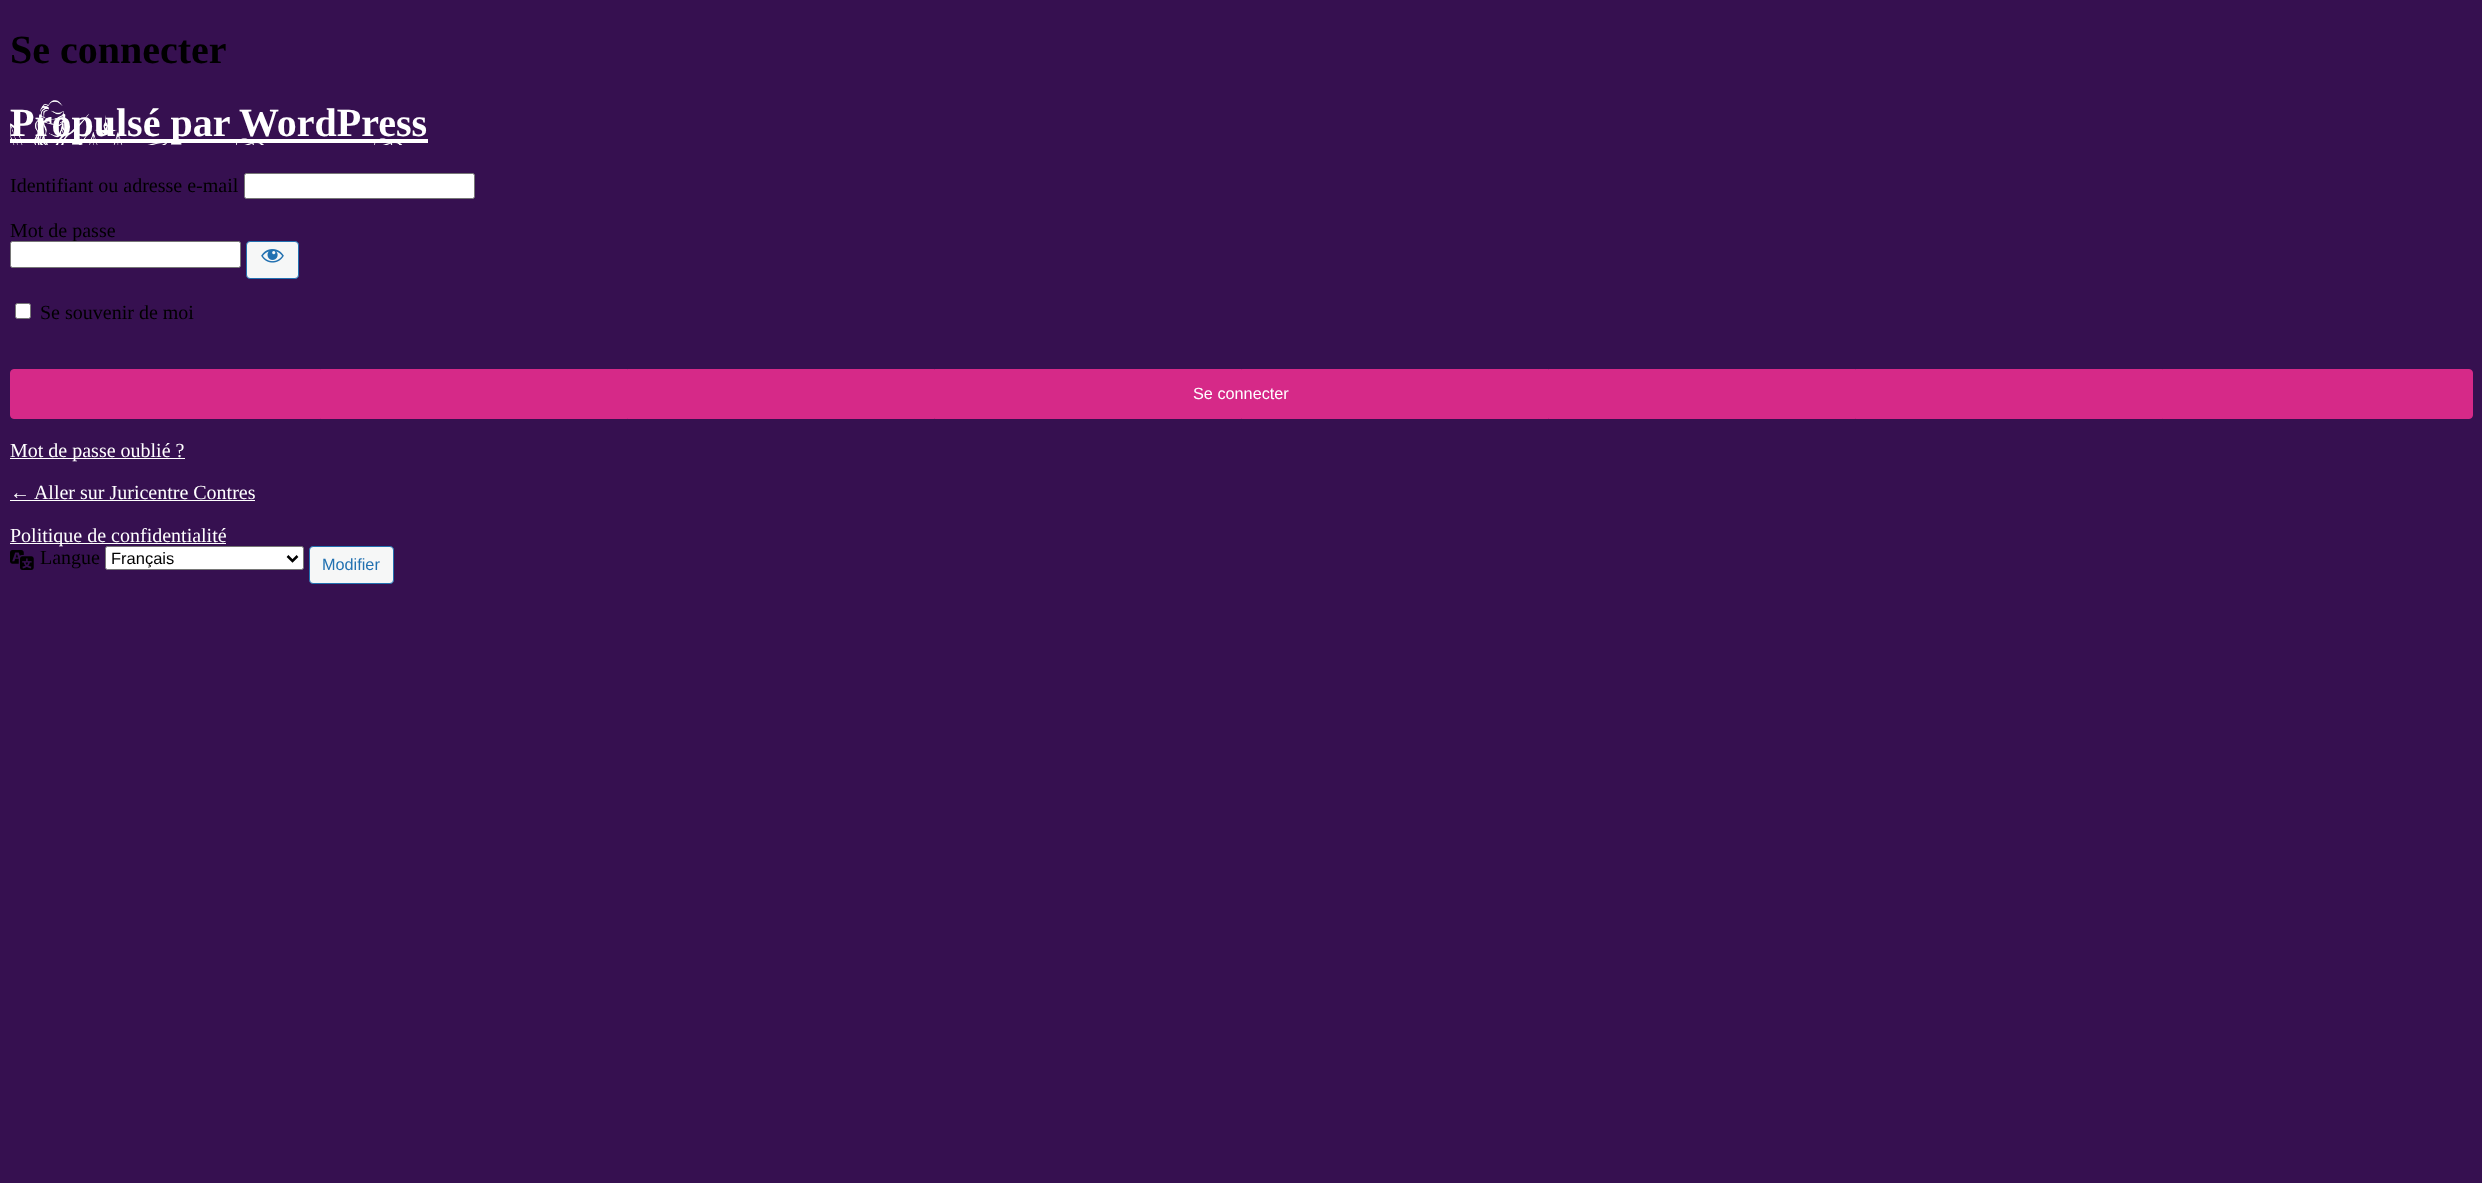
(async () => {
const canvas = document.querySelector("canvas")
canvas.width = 2482
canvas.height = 1183
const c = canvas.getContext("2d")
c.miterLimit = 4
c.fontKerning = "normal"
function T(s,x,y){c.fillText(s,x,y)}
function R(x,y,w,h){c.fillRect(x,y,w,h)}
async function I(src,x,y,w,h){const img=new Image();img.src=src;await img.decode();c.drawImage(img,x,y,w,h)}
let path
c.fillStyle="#361050"
R(0,0,2482,1183)
c.font="bold 40px Liberation Serif"
c.fillStyle="#000"
T("Se connecter",10,63)
await I("1.png",10,100,393,45)
c.fillStyle="#fff"
R(10,139,418,4)
T("Propulsé par WordPress",10,136)
c.font="20px Liberation Serif"
c.fillStyle="#000"
T("Identifiant ou adresse e-mail",10,192)
c.fillStyle="#fff"
c.beginPath()
c.roundRect(244.5,173.5,230,25,2)
c.fill()
c.strokeStyle="#767676"
c.stroke()
c.fillStyle="#000"
T("Mot de passe",10,237)
c.fillStyle="#fff"
c.beginPath()
c.roundRect(10.5,241.5,230,26,2)
c.fill()
c.stroke()
c.fillStyle="#f6f7f7"
c.beginPath()
c.roundRect(246.5,241.5,52,37,3.5)
c.fill()
c.strokeStyle="#2271b1"
c.stroke()
await I("2.png",261,249,23,14)
c.fillStyle="#fff"
c.beginPath()
c.roundRect(15.5,303.5,15,15,2)
c.fill()
c.strokeStyle="#767676"
c.stroke()
c.fillStyle="#000"
T("Se souvenir de moi",40,319)
c.fillStyle="#d62988"
c.beginPath()
c.roundRect(10.5,369.5,2462,49,3.5)
c.fill()
c.strokeStyle="#d62988"
c.stroke()
c.font="16.25px Liberation Sans"
c.fillStyle="#fff"
T("Se connecter",1193,399)
R(10,458,175,1)
c.font="20px Liberation Serif"
T("Mot de passe oublié ?",10,457)
T("← Aller sur Juricentre Contres",10,499)
R(10,500,245,1)
R(10,543,216,1)
T("Politique de confidentialité",10,542)
await I("3.png",10,550,24,20)
c.fillStyle="#000"
T("Langue",40,564)
c.fillStyle="#fff"
c.beginPath()
c.roundRect(105.5,546.5,198,23,2)
c.fill()
c.strokeStyle="#767676"
c.stroke()
path = new Path2D("M287.5 556l5 5l5-5")
c.strokeStyle="#000"
c.lineWidth=2.5
c.stroke(path)
c.font="16.5px Liberation Sans"
c.fillStyle="#000"
T("Français",111,564)
c.fillStyle="#f6f7f7"
c.beginPath()
c.roundRect(309.5,546.5,84,37,3.5)
c.fill()
c.strokeStyle="#2271b1"
c.lineWidth=1
c.stroke()
c.font="16.25px Liberation Sans"
c.fillStyle="#2271b1"
T("Modifier",322,570)
})()
